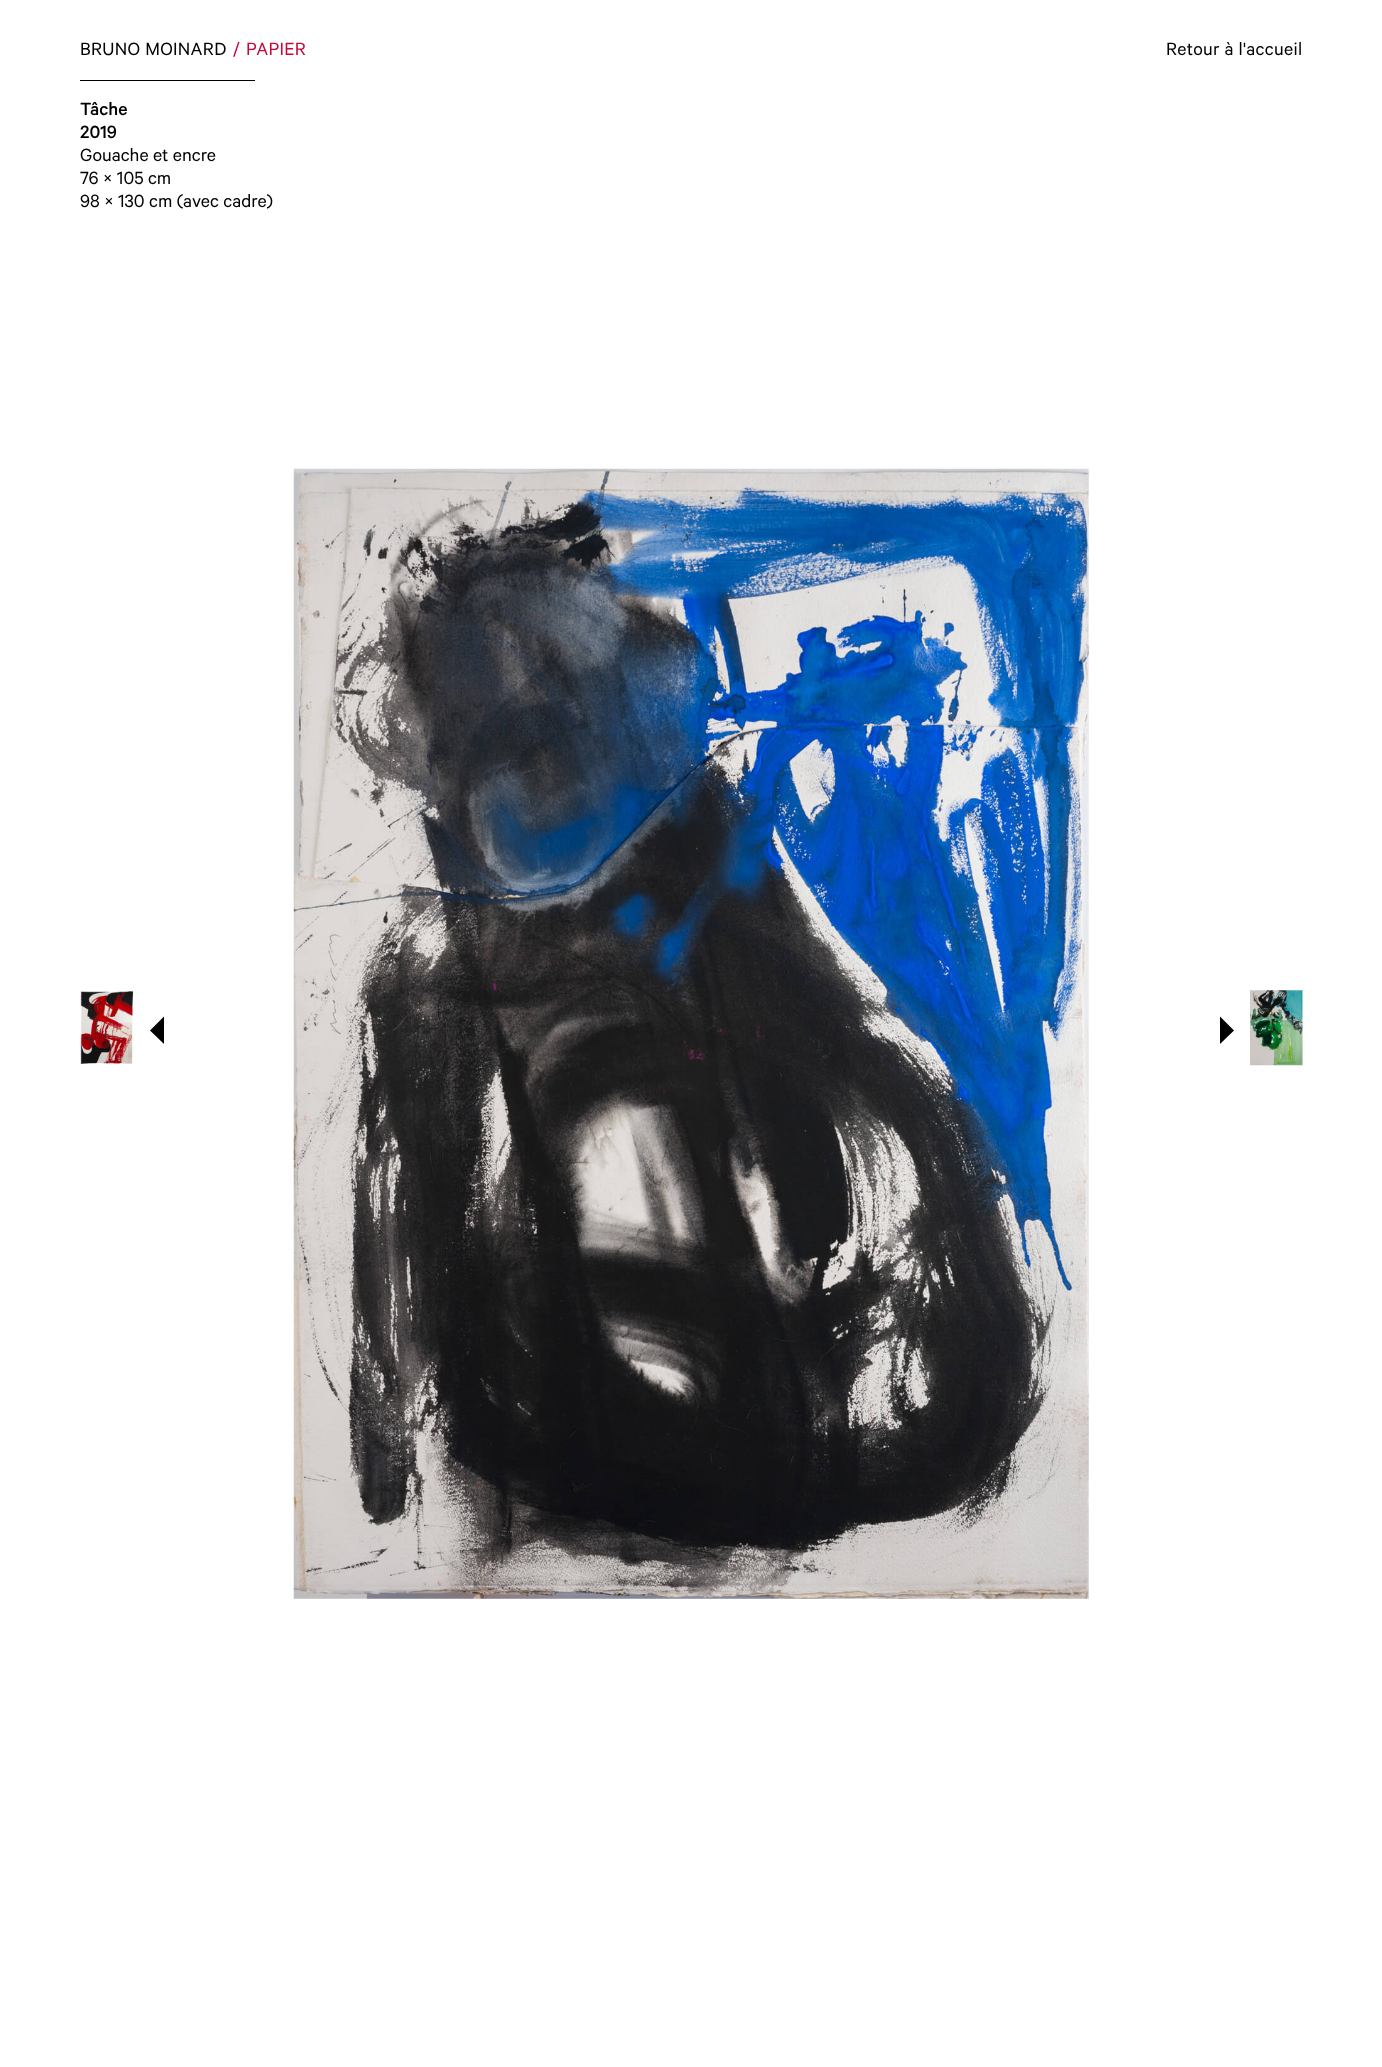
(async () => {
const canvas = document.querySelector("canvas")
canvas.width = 1382
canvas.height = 2067
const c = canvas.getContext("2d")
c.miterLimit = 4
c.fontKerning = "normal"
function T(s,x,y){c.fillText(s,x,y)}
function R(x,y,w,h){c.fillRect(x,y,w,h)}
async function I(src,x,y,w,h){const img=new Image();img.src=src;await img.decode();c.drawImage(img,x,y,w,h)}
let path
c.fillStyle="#fff"
R(0,0,1382,2067)
c.letterSpacing="0.3px"
c.font="20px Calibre"
c.fillStyle="#000"
T("BRUNO MOINARD",80,55)
c.fillStyle="#c5093b"
T("/",233,55)
T("PAPIER",246,55)
c.fillStyle="#000"
T("Retour à l'accueil",1166,55)
R(80,80,175,1)
c.letterSpacing="0px"
c.font="500 20px Calibre"
T("Tâche",80,115)
T("2019",80,138)
c.font="20px Calibre"
T("Gouache et encre",80,161)
T("76 × 105 cm",80,184)
T("98 × 130 cm (avec cadre)",80,207)
await I("1.png",293,468,796,1131)
await I("2.png",80,991,54,73)
path = new Path2D("M164 1016.5v27.5l-14-13.5z")
c.fill(path)
path = new Path2D("M1220 1044v-27.5l14 14z")
c.fill(path)
await I("3.png",1250,990,53,76)
})()
